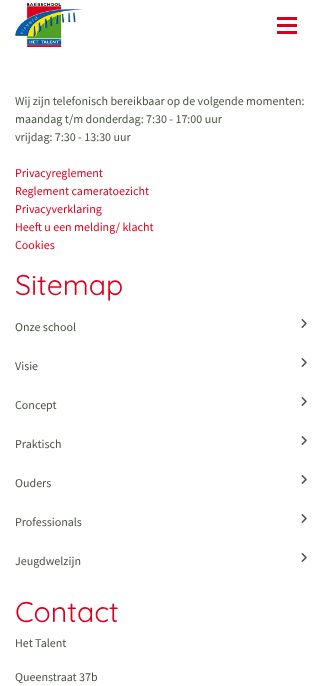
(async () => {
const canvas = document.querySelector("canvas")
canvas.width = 322
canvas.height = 686
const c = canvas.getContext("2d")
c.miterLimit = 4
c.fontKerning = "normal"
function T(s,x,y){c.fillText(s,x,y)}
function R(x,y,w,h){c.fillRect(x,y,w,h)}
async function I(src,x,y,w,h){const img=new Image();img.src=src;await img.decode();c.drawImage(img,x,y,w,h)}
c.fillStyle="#fff"
R(0,0,322,686)
await I("1.png",15,3,67,44)
c.fillStyle="#db001c"
R(277,24,20,3)
R(277,17,20,3)
R(277,31,20,3)
c.font="12px Source Sans Pro"
c.fillStyle="#495446"
T("Wij zijn telefonisch bereikbaar op de volgende momenten:",15,105)
T("maandag t/m donderdag: 7:30 - 17:00 uur",15,123)
T("vrijdag: 7:30 - 13:30 uur",15,141)
c.fillStyle="#db001c"
T("Privacyreglement",15,177)
T("Reglement cameratoezicht",15,195)
T("Privacyverklaring",15,213)
T("Heeft u een melding/ klacht",15,231)
T("Cookies",15,249)
c.font="300 28.5px Quicksand"
T("Sitemap",15,295)
c.font="12px Source Sans Pro"
c.fillStyle="#495446"
T("Onze school",15,331)
await I("2.png",301,319,6,9)
T("Visie",15,370)
await I("2.png",301,358,6,9)
T("Concept",15,409)
await I("2.png",301,397,6,9)
T("Praktisch",15,448)
await I("2.png",301,436,6,9)
T("Ouders",15,487)
await I("2.png",301,475,6,9)
T("Professionals",15,526)
await I("2.png",301,514,6,9)
T("Jeugdwelzijn",15,565)
await I("2.png",301,553,6,9)
c.font="300 28.5px Quicksand"
c.fillStyle="#db001c"
T("Contact",15,622)
c.font="12px Source Sans Pro"
c.fillStyle="#495446"
T("Het Talent",15,647)
T("Queenstraat 37b",15,681)
})()
